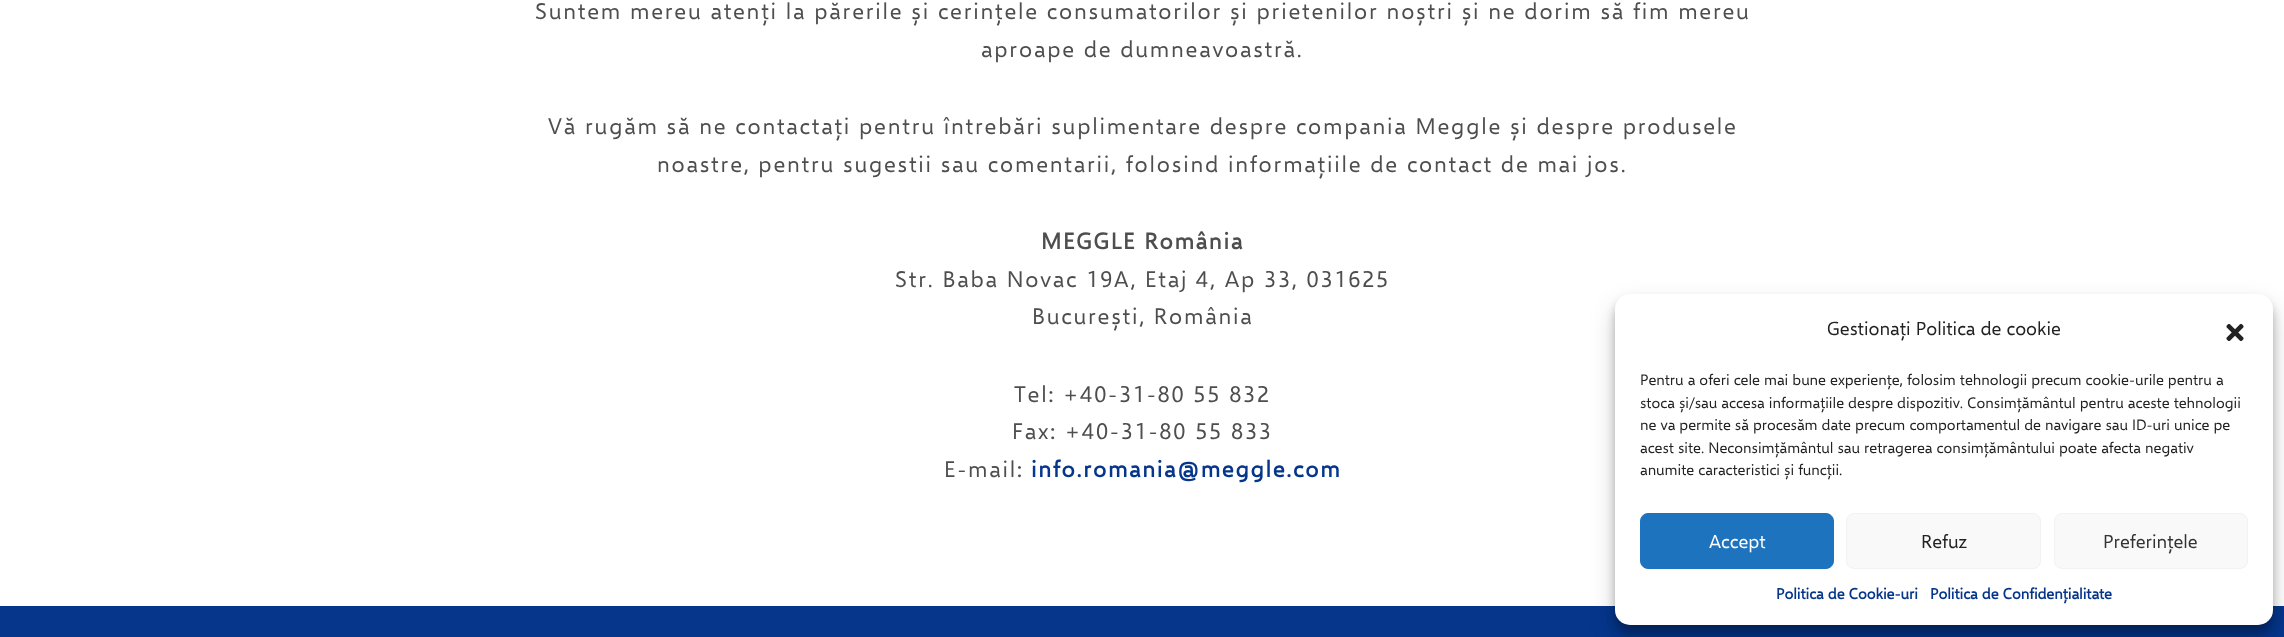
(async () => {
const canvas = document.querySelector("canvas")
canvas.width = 2284
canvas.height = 637
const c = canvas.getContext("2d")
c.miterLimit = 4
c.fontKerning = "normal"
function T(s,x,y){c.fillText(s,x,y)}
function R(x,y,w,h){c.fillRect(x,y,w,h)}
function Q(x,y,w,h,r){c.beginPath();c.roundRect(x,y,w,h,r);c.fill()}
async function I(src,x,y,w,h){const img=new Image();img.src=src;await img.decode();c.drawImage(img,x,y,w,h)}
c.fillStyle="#fff"
R(0,0,2284,637)
c.letterSpacing="1.8px"
c.font="22.5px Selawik"
c.fillStyle="#4e4e4e"
T("Suntem mereu atenți la părerile și cerințele consumatorilor și prietenilor noștri și ne dorim să fim mereu",535,19)
T("aproape de dumneavoastră.",981,57)
T("Vă rugăm să ne contactați pentru întrebări suplimentare despre compania Meggle și despre produsele",548,134)
T("noastre, pentru sugestii sau comentarii, folosind informațiile de contact de mai jos.",657,172)
c.font="bold 22.5px Selawik"
T("MEGGLE România",1041,249)
c.font="22.5px Selawik"
T("Str. Baba Novac 19A, Etaj 4, Ap 33, 031625",895,287)
T("București, România",1032,324)
T("Tel: +40-31-80 55 832",1014,402)
T("Fax: +40-31-80 55 833",1012,439)
T("E-mail:",944,477)
c.font="bold 22.5px Selawik"
c.fillStyle="#05368c"
T("info.romania@meggle.com",1031,477)
R(0,606,2284,31)
c.fillStyle="#0000003b"
c.filter="blur(4px)"
c.beginPath()
c.roundRect(1615,301,658,332,15)
c.fill()
c.filter="none"
c.fillStyle="#00000030"
c.filter="blur(12.5px)"
c.beginPath()
c.roundRect(1615,306,658,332,15)
c.fill()
c.filter="none"
c.fillStyle="#fff"
Q(1615,294,658,331,15)
c.letterSpacing="0px"
c.font="18.75px Selawik"
c.fillStyle="#222"
T("Gestionați Politica de cookie",1827,335)
await I("1.png",2226,323,18,18)
c.font="15px Selawik"
T("Pentru a oferi cele mai bune experiențe, folosim tehnologii precum cookie-urile pentru a",1640,385)
T("stoca și/sau accesa informațiile despre dispozitiv. Consimțământul pentru aceste tehnologii",1640,408)
T("ne va permite să procesăm date precum comportamentul de navigare sau ID-uri unice pe",1640,430)
T("acest site. Neconsimțământul sau retragerea consimțământului poate afecta negativ",1640,453)
T("anumite caracteristici și funcții.",1640,475)
c.fillStyle="#1e73be"
c.beginPath()
c.roundRect(1640.5,513.5,193,55,7.5)
c.fill()
c.strokeStyle="#1e73be"
c.stroke()
c.font="18.75px Selawik"
c.fillStyle="#fff"
T("Accept",1709,548)
c.fillStyle="#f9f9f9"
c.beginPath()
c.roundRect(1846.5,513.5,194,55,7.5)
c.fill()
c.strokeStyle="#f2f2f2"
c.stroke()
c.fillStyle="#222"
T("Refuz",1921,548)
c.fillStyle="#f9f9f9"
c.beginPath()
c.roundRect(2054.5,513.5,193,55,7.5)
c.fill()
c.stroke()
c.fillStyle="#333"
T("Preferințele",2103,548)
c.font="bold 15px Selawik"
c.fillStyle="#05368c"
T("Politica de Cookie-uri",1776,599)
T("Politica de Confidențialitate",1930,599)
})()
